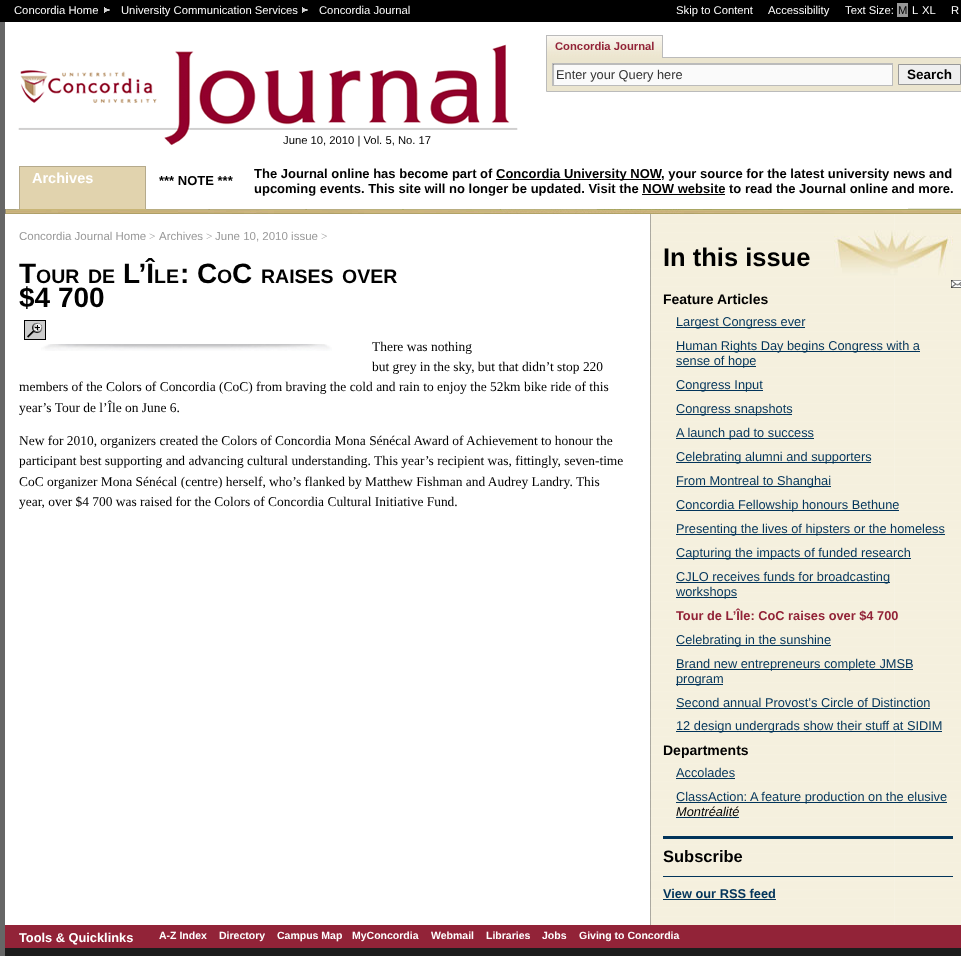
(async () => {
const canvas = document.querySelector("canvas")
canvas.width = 961
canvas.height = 956
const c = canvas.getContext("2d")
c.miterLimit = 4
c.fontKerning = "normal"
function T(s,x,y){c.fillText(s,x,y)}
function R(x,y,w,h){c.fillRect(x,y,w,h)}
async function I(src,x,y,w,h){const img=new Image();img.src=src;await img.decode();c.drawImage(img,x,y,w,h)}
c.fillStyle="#000"
R(0,0,961,956)
c.font="11.25px Liberation Sans"
c.fillStyle="#fff"
T("Concordia Home",14,14)
await I("1.png",104,7,6,6)
T("University Communication Services",121,14)
await I("1.png",302,7,6,6)
T("Concordia Journal",319,14)
T("Skip to Content",676,14)
T("Accessibility",768,14)
T("Text Size:",845,14)
c.fillStyle="#999"
R(897,3,11,14)
c.fillStyle="#000"
T("M",898,14)
c.fillStyle="#fff"
T("L",912,14)
T("XL",922,14)
T("R",951,14)
c.fillStyle="#666"
R(0,22,5,934)
c.fillStyle="#fff"
R(5,22,956,22)
await I("2.png",5,44,956,170)
c.fillStyle="#ebe5cf"
c.beginPath()
c.rect(546.5,57.5,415,34)
c.fill()
c.strokeStyle="#bbb"
c.stroke()
await I("3.png",547,36,115,22)
c.font="bold 11.25px Liberation Sans"
c.fillStyle="#922338"
T("Concordia Journal",555,50)
c.fillStyle="#bbb"
R(546,35,117,1)
R(662,35,1,23)
R(546,35,1,23)
await I("4.png",553,64,339,21)
c.strokeRect(552.5,63.5,340,22)
c.font="12.8px Liberation Sans"
c.fillStyle="#333"
T("Enter your Query here",556,79)
c.fillStyle="#efefef"
c.beginPath()
c.rect(898.5,64.5,62,20)
c.fill()
c.strokeStyle="#999"
c.stroke()
c.font="bold 13.5px Liberation Sans"
c.fillStyle="#000"
T("Search",907,79)
c.font="11.25px Liberation Sans"
T("June 10, 2010 | Vol. 5, No. 17",283,144)
c.fillStyle="#e1d3ae"
R(20,167,125,42)
c.fillStyle="#b5aa8c"
R(19,166,127,1)
R(145,166,1,44)
c.fillStyle="#c9b576"
R(19,209,127,1)
c.fillStyle="#b5aa8c"
R(19,166,1,44)
c.font="bold 14.5px Liberation Sans"
c.fillStyle="#fff"
T("Archives",32,183)
c.font="bold 13px Liberation Sans"
c.fillStyle="#000"
T("*** NOTE ***",159,185)
T("The Journal online has become part of",254,178)
R(496,179,165,1)
T("Concordia University NOW",496,178)
T(", your source for the latest university news and",661,178)
T("upcoming events. This site will no longer be updated. Visit the NOW website",254,193)
R(642,194,83,1)
T("to read the Journal online and more.",729,193)
c.fillStyle="#fff"
R(5,214,645,711)
await I("5.png",650,214,311,711)
c.font="11.5px Liberation Sans"
c.fillStyle="#999"
T("Concordia Journal Home",19,240)
c.font="11.5px Liberation Serif"
T(">",149,240)
c.font="11.5px Liberation Sans"
T("Archives",159,240)
c.font="11.5px Liberation Serif"
T(">",206,240)
c.font="11.5px Liberation Sans"
T("June 10, 2010 issue",215,240)
c.font="11.5px Liberation Serif"
T(">",321,240)
c.font="bold 28px Liberation Sans"
c.fillStyle="#000"
T("T",19,283)
c.font="bold 19.5px Liberation Sans"
T("OUR",36,283)
T("DE",88,283)
c.font="bold 28px Liberation Sans"
T("L’Î",123,283)
c.font="bold 19.5px Liberation Sans"
T("LE",154,283)
c.font="bold 28px Liberation Sans"
T(": C",180,283)
c.font="bold 19.5px Liberation Sans"
T("O",217,283)
c.font="bold 28px Liberation Sans"
T("C",232,283)
c.font="bold 19.5px Liberation Sans"
T("RAISES",261,283)
T("OVER",342,283)
c.font="bold 28px Liberation Sans"
T("$4 700",19,307)
await I("6.png",951,280,10,8)
await I("7.png",41,344,291,7)
c.strokeStyle="#000"
c.strokeRect(24.5,320.5,21,19)
await I("8.png",25,321,20,18)
c.font="13.45px Liberation Serif"
T("There was nothing",372,351)
T("but grey in the sky, but that didn’t stop 220",372,371)
T("members of the Colors of Concordia (CoC) from braving the cold and rain to enjoy the 52km bike ride of this",19,391)
T("year’s Tour de l’Île on June 6.",19,412)
T("New for 2010, organizers created the Colors of Concordia Mona Sénécal Award of Achievement to honour the",19,445)
T("participant best supporting and advancing cultural understanding. This year’s recipient was, fittingly, seven-time",19,465)
T("CoC organizer Mona Sénécal (centre) herself, who’s flanked by Matthew Fishman and Audrey Landry. This",19,486)
T("year, over $4 700 was raised for the Colors of Concordia Cultural Initiative Fund.",19,506)
await I("9.png",834,230,119,48)
c.font="bold 25.5px Liberation Sans"
T("In this issue",663,266)
c.font="bold 14px Liberation Sans"
T("Feature Articles",663,304)
c.fillStyle="#02345a"
R(676,327,129,1)
c.font="12.8px Liberation Sans"
T("Largest Congress ever",676,326)
R(676,351,244,1)
T("Human Rights Day begins Congress with a",676,350)
R(676,366,80,1)
T("sense of hope",676,365)
R(676,390,87,1)
T("Congress Input",676,389)
R(676,414,116,1)
T("Congress snapshots",676,413)
R(676,438,138,1)
T("A launch pad to success",676,437)
R(676,462,195,1)
T("Celebrating alumni and supporters",676,461)
R(676,486,155,1)
T("From Montreal to Shanghai",676,485)
R(676,510,223,1)
T("Concordia Fellowship honours Bethune",676,509)
R(676,534,269,1)
T("Presenting the lives of hipsters or the homeless",676,533)
R(676,558,235,1)
T("Capturing the impacts of funded research",676,557)
R(676,582,214,1)
T("CJLO receives funds for broadcasting",676,581)
R(676,597,61,1)
T("workshops",676,596)
c.font="bold 12.8px Liberation Sans"
c.fillStyle="#922338"
T("Tour de L’Île: CoC raises over $4 700",676,620)
c.fillStyle="#02345a"
R(676,645,155,1)
c.font="12.8px Liberation Sans"
T("Celebrating in the sunshine",676,644)
R(676,669,237,1)
T("Brand new entrepreneurs complete JMSB",676,668)
R(676,684,47,1)
T("program",676,683)
T("Second annual Provost’s Circle of Distinction",676,707)
R(676,708,254,1)
R(676,731,266,1)
T("12 design undergrads show their stuff at SIDIM",676,730)
c.font="bold 14px Liberation Sans"
c.fillStyle="#000"
T("Departments",663,755)
c.font="12.8px Liberation Sans"
c.fillStyle="#02345a"
T("Accolades",676,777)
R(676,778,59,1)
R(676,802,271,1)
T("ClassAction: A feature production on the elusive",676,801)
c.font="italic 12.8px Liberation Sans"
c.fillStyle="#000"
T("Montréalité",676,816)
c.fillStyle="#02345a"
R(676,817,63,1)
R(663,836,290,3)
R(663,876,290,1)
c.font="bold 16.5px Liberation Sans"
c.fillStyle="#000"
T("Subscribe",663,862)
c.font="bold 12.8px Liberation Sans"
c.fillStyle="#02345a"
T("View our RSS feed",663,898)
R(663,899,113,1)
c.fillStyle="#1d1d1d"
R(5,948,956,8)
c.fillStyle="#922338"
R(5,925,956,23)
c.fillStyle="#fff"
T("Tools & Quicklinks",19,942)
c.font="bold 10.5px Liberation Sans"
T("A-Z Index",159,939)
T("Directory",219,939)
T("Campus Map",277,939)
T("MyConcordia",352,939)
T("Webmail",431,939)
T("Libraries",486,939)
T("Jobs",542,939)
T("Giving to Concordia",579,939)
})()
